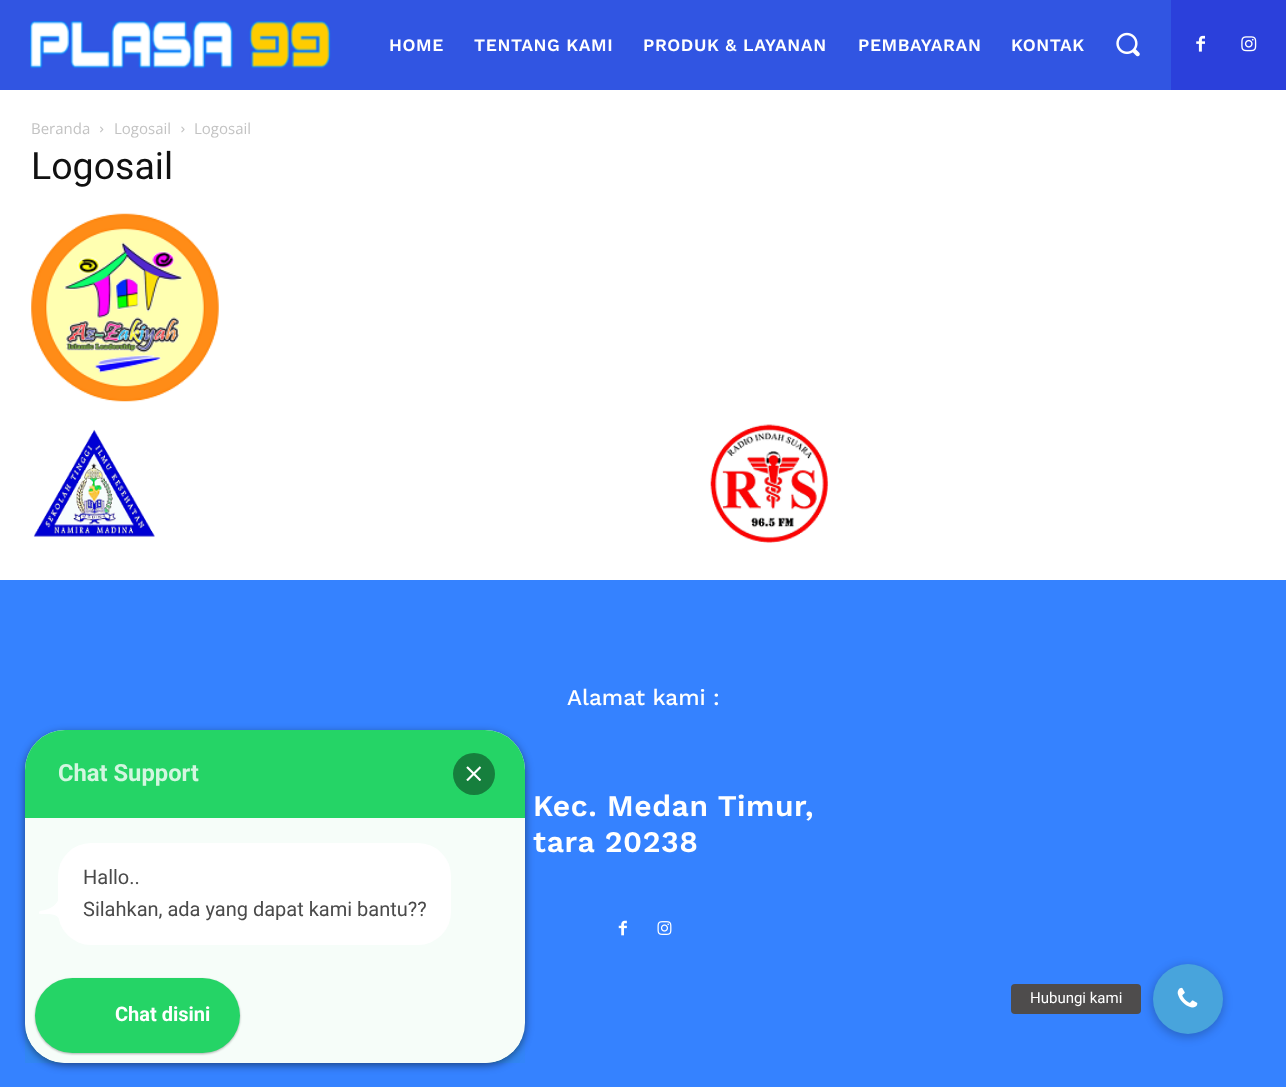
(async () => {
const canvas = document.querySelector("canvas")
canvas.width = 1286
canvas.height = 1087
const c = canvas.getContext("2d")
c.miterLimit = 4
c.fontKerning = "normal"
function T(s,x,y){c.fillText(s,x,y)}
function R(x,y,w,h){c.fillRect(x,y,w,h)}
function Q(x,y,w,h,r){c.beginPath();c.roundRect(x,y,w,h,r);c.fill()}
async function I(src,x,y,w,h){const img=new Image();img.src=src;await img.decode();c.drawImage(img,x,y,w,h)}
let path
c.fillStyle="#fff"
R(0,0,1286,1087)
c.fillStyle="#3155e2"
R(0,0,1171,90)
await I("1.png",30,21,301,48)
c.letterSpacing="0.6px"
c.font="600 17.5px Work Sans"
c.fillStyle="#fff"
T("HOME",389,51)
T("TENTANG KAMI",474,51)
T("PRODUK & LAYANAN",643,51)
T("PEMBAYARAN",858,51)
T("KONTAK",1011,51)
await I("2.png",1116,32,24,25)
c.fillStyle="#2b40db"
R(1171,0,115,90)
await I("3.png",1196,35,9,17)
await I("4.png",1241,36,16,16)
c.letterSpacing="0px"
c.font="15px Open Sans"
c.fillStyle="#c3c3c3"
T("Beranda",31,134)
await I("5.png",100,126,4,7)
T("Logosail",114,134)
await I("6.png",181,126,4,7)
T("Logosail",194,134)
c.font="37.5px Roboto"
c.fillStyle="#111"
T("Logosail",31,179)
await I("7.png",31,213,188,189)
await I("8.png",33,429,122,108)
await I("9.png",710,424,119,119)
c.fillStyle="#3582ff"
R(0,580,1286,507)
c.font="500 22.5px Work Sans"
c.fillStyle="#fff"
T("Alamat kami :",567,705)
c.letterSpacing="0.6px"
c.font="600 30px Work Sans"
T("Kec. Medan Timur,",533,816)
T("tara 20238",533,852)
await I("10.png",618,920,9,16)
await I("11.png",657,921,15,14)
c.fillStyle="#00000080"
c.filter="blur(4px)"
c.beginPath()
c.roundRect(25,733,500,332,40)
c.fill()
c.filter="none"
c.fillStyle="#fff"
Q(25,730,500,333,40)
c.fillStyle="#25d466"
c.beginPath()
c.roundRect(25,730,500,88,[40,40,0,0])
c.fill()
c.fillStyle="#25d4660a"
R(25,818,500,245)
c.letterSpacing="0px"
c.font="bold 23.75px Roboto"
c.fillStyle="#d3f6e0"
T("Chat Support",58,781)
c.fillStyle="#167f3d"
c.beginPath()
c.arc(474,774,21,0,7)
c.fill()
await I("12.png",466,766,15,15)
c.fillStyle="#fff"
Q(58,843,393,102,33)
c.font="20px Roboto"
c.fillStyle="#4a4a4a"
T("Hallo..",83,884)
c.fillStyle="#fff"
path = new Path2D("M60 922.5v-31.5c0 16.5-13.5 19-20 20l-1 1v1.5c1 1 5 .5 5.5 .5c6 0 15.5 0 15.5 8.5z")
c.fill(path)
c.fillStyle="#4a4a4a"
T("Silahkan, ada yang dapat kami bantu??",83,916)
c.save()
c.beginPath()
c.roundRect(25,730,500,333,40)
c.clip()
c.fillStyle="#fff"
c.beginPath()
c.roundRect(25,963,495,100,[0,0,0,40])
c.fill()
c.restore()
c.fillStyle="#25d4660a"
R(25,963,495,100)
c.fillStyle="#0000004d"
c.filter="blur(1px)"
c.beginPath()
c.roundRect(35,979,205,75,37.5)
c.fill()
c.filter="none"
c.fillStyle="#25d466"
Q(35,978,205,75,37.5)
c.font="bold 20px Roboto"
c.fillStyle="#fff"
T("Chat disini",115,1021)
c.fillStyle="#00000033"
c.filter="blur(4px)"
c.beginPath()
c.roundRect(1151,965,73,73,36.5)
c.fill()
c.filter="none"
c.fillStyle="#48a4dc"
c.beginPath()
c.arc(1188,999,35,0,7)
c.fill()
c.fillStyle="#4e4c4c"
Q(1011,984,130,30,4)
c.font="15px Roboto"
c.fillStyle="#fff"
T("Hubungi kami",1030,1003)
await I("13.png",1177,987,21,21)
})()
